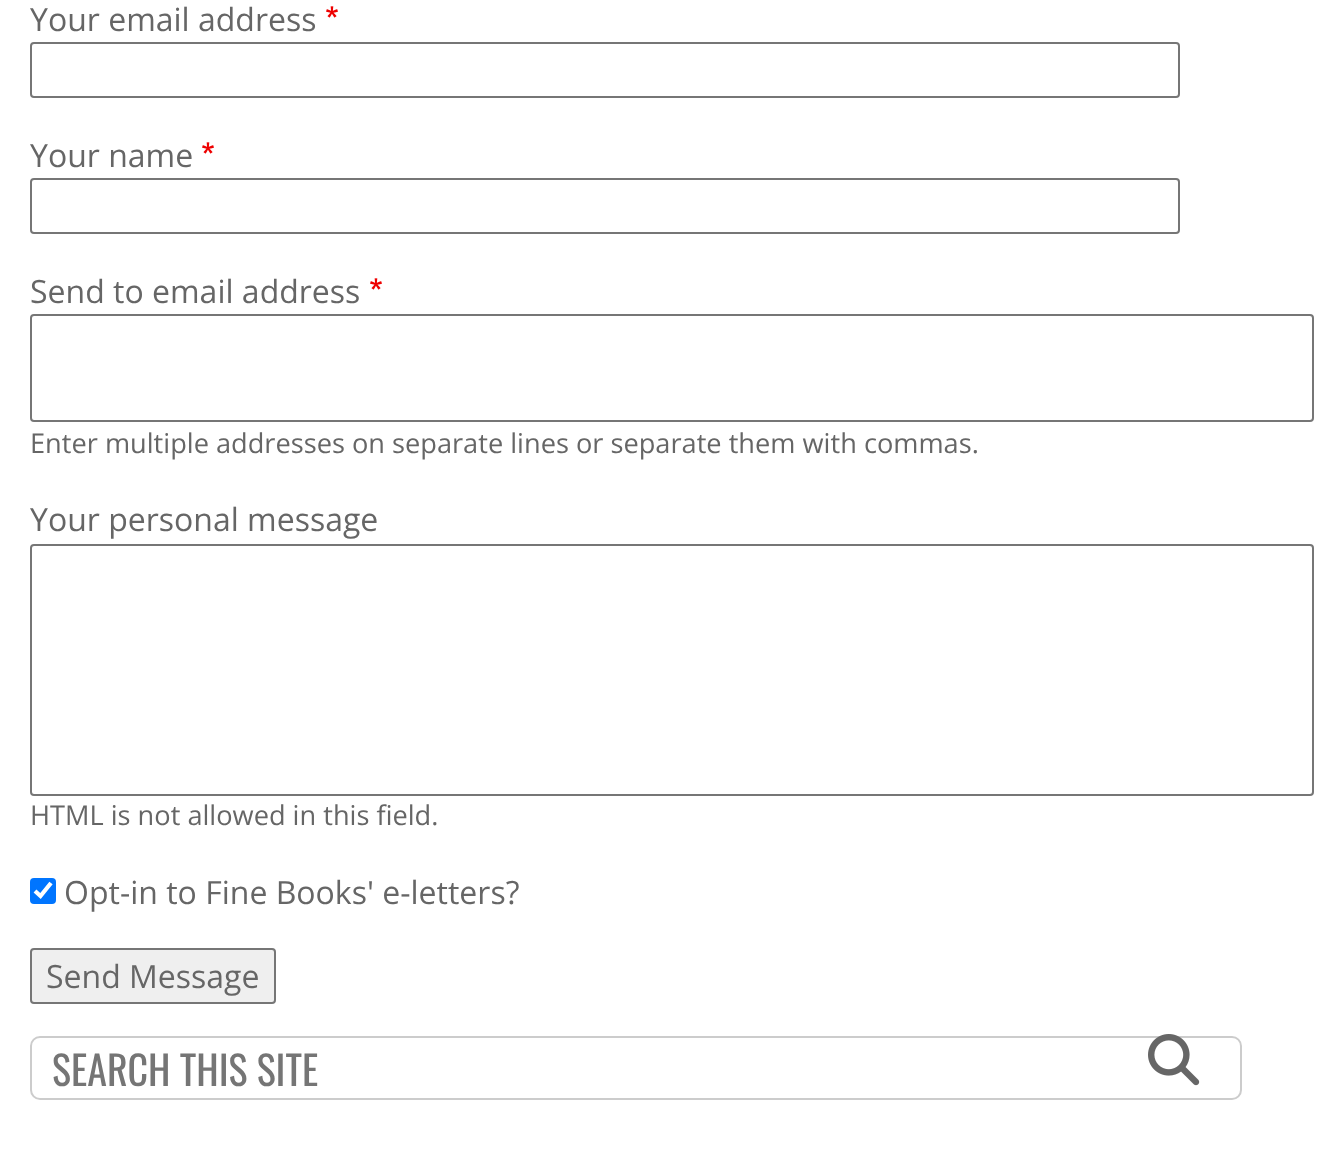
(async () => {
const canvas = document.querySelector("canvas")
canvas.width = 1344
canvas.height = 1162
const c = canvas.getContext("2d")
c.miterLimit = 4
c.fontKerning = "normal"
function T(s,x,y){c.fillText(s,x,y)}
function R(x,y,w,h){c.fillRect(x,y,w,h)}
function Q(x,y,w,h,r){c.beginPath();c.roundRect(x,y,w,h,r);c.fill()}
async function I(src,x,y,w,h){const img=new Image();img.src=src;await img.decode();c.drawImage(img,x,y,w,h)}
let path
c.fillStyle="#fff"
R(0,0,1344,1162)
c.font="32px Open Sans"
c.fillStyle="#666"
T("Your email address",30,31)
await I("1.png",326,6,12,12)
c.beginPath()
c.roundRect(31,43,1148,54,3)
c.strokeStyle="#767676"
c.lineWidth=2
c.stroke()
T("Your name",30,167)
await I("1.png",202,142,12,12)
c.beginPath()
c.roundRect(31,179,1148,54,3)
c.stroke()
T("Send to email address",30,303)
await I("1.png",370,278,12,12)
c.beginPath()
c.roundRect(31,315,1282,106,3)
c.stroke()
c.font="27.2px Open Sans"
T("Enter multiple addresses on separate lines or separate them with commas.",30,453)
c.font="32px Open Sans"
T("Your personal message",30,531)
c.beginPath()
c.roundRect(31,545,1282,250,3)
c.stroke()
c.font="27.2px Open Sans"
T("HTML is not allowed in this field.",30,825)
c.fillStyle="#0075ff"
Q(30,878,26,26,4)
path = new Path2D("M35 891l5.5 5l10.5-13")
c.strokeStyle="#fff"
c.lineWidth=4.2
c.stroke(path)
c.font="32px Open Sans"
c.fillStyle="#666"
T("Opt-in to Fine Books' e-letters?",64,904)
c.fillStyle="#efefef"
c.beginPath()
c.roundRect(31,949,244,54,3)
c.fill()
c.strokeStyle="#767676"
c.lineWidth=2
c.stroke()
c.fillStyle="#666"
T("Send Message",46,988)
c.beginPath()
c.roundRect(31,1037,1210,62,9)
c.strokeStyle="#ccc"
c.stroke()
c.font="40px Oswald"
c.fillStyle="#757575"
T("SEARCH THIS SITE",52,1086)
await I("2.png",1148,1034,52,52)
})()
